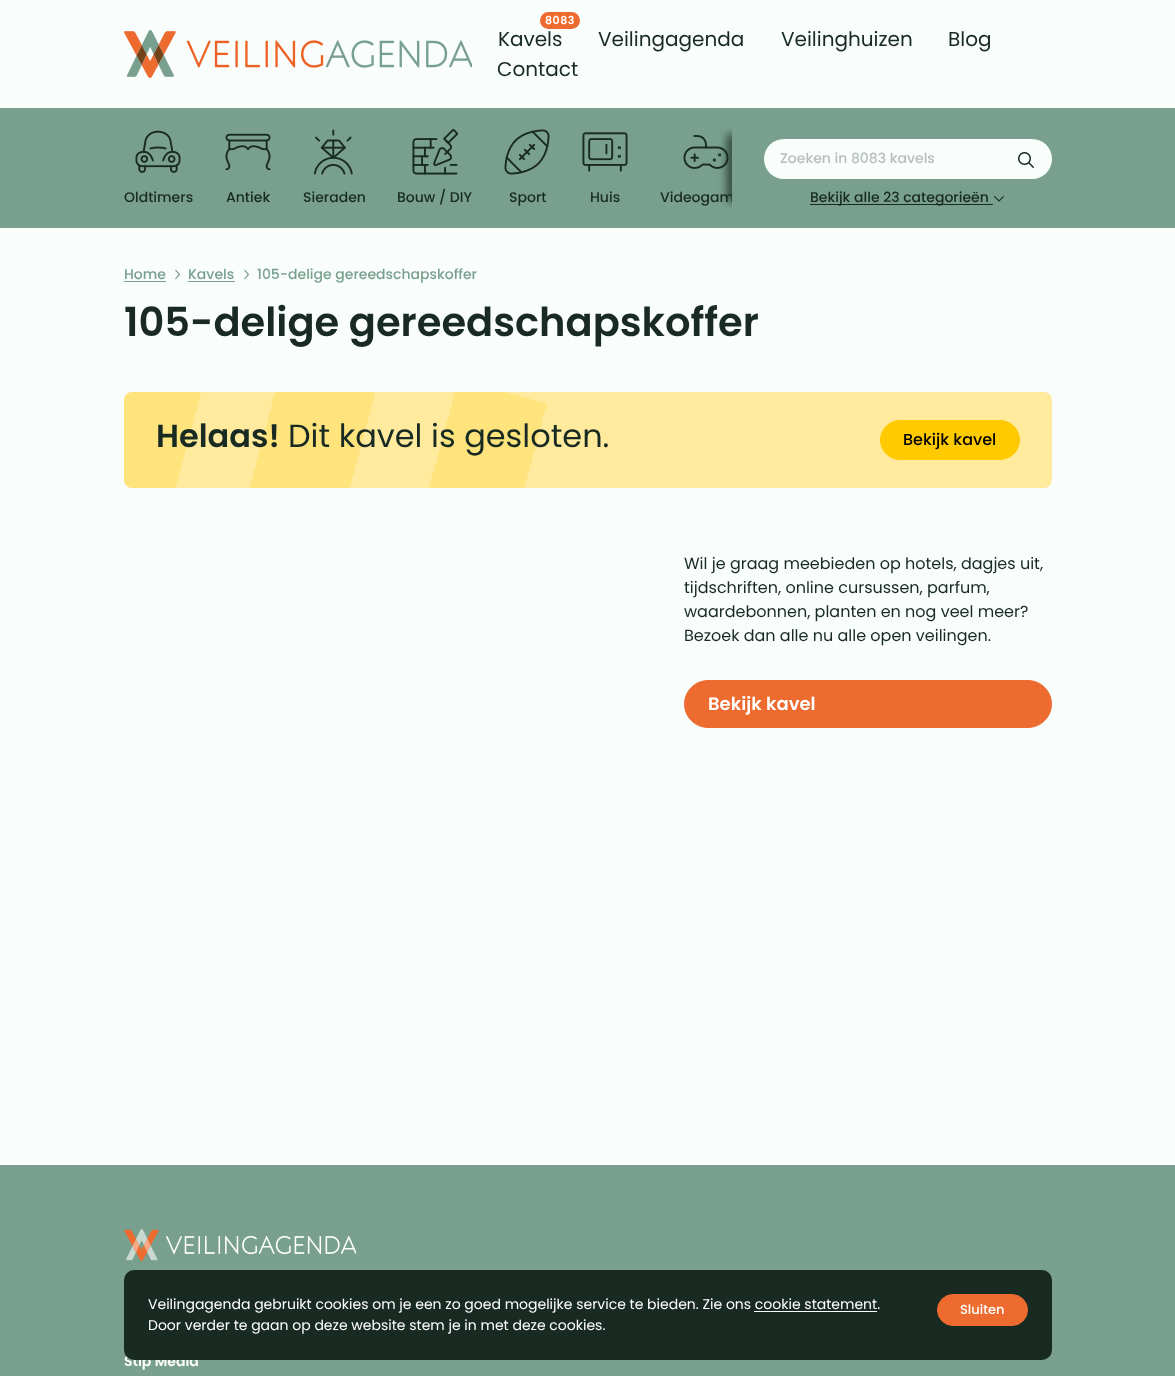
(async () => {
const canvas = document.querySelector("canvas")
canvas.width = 1175
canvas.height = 1376
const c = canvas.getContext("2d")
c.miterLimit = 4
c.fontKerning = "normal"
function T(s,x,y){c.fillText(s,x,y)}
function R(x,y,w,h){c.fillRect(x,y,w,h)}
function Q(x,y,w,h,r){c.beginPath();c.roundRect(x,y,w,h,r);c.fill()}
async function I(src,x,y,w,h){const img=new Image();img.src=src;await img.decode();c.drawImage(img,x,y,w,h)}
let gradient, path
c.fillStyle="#f9fefc"
R(0,0,1175,1376)
await I("1.png",124,30,348,48)
c.fillStyle="#ed6b2f"
Q(540,12,40,17,8.5)
c.letterSpacing="0.5px"
c.font="600 11px Poppins"
c.fillStyle="#fff"
T("8083",545,24)
c.letterSpacing="0px"
c.font="20px Poppins"
c.fillStyle="#182a22"
T("Kavels",498,46)
T("Veilingagenda",598,46)
T("Veilinghuizen",781,46)
T("Blog",948,46)
T("Contact",497,76)
c.fillStyle="#79a08f"
R(0,108,1175,120)
await I("8.png",683,135,46,34)
c.save()
c.beginPath()
c.rect(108,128,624,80)
c.clip()
c.fillStyle="#182a22"
c.filter="blur(5px)"
c.beginPath()
c.roundRect(728,134,8,68,4)
c.fill()
c.filter="none"
c.restore()
await I("2.png",135,130,46,43)
c.font="500 14px Poppins"
c.fillStyle="#182a22"
T("Oldtimers",124,202)
await I("3.png",225,133,46,38)
T("Antiek",226,202)
await I("4.png",313,129,40,46)
T("Sieraden",303,202)
await I("5.png",412,129,46,46)
T("Bouw / DIY",397,202)
await I("6.png",504,129,46,46)
T("Sport",509,202)
await I("7.png",582,132,46,40)
T("Huis",590,202)
c.save()
c.beginPath()
c.rect(108,128,624,80)
c.clip()
T("Videogam",660,202)
c.restore()
c.fillStyle="#f9fefc"
Q(764,139,288,40,20)
c.fillStyle="#b6bebb"
T("Zoeken in 8083 kavels",780,163)
await I("9.png",1018,152,16,16)
c.fillStyle="#182a22"
R(810,204,183,1)
T("Bekijk alle 23 categorieën",810,202)
await I("10.png",994,196,10,6)
c.fillStyle="#79a08f"
T("Home",124,279)
R(124,281,42,1)
await I("11.png",175,269,5,11)
T("Kavels",188,279)
R(188,281,47,1)
await I("11.png",244,269,5,11)
T("105-delige gereedschapskoffer",257,279)
c.font="600 40px Poppins"
c.fillStyle="#182a22"
T("105-delige gereedschapskoffer",124,336)
c.fillStyle="#ffea9d"
Q(124,392,928,96,8)
gradient = c.createLinearGradient(103,384,596,516)
gradient.addColorStop(0,"#ffe47d")
gradient.addColorStop(.19,"#ffe47d")
gradient.addColorStop(.19,"#ffe47d00")
gradient.addColorStop(.33,"#ffe47d00")
gradient.addColorStop(.33,"#ffe47d")
gradient.addColorStop(.52,"#ffe47d")
gradient.addColorStop(.52,"#ffe47d00")
gradient.addColorStop(.67,"#ffe47d00")
gradient.addColorStop(.67,"#ffe47d")
gradient.addColorStop(.85,"#ffe47d")
gradient.addColorStop(.85,"#ffe47d00")
gradient.addColorStop(1,"#00000000")
c.fillStyle = gradient
path = new Path2D("M132 392h372l45 12l-23 84h-394c-4 0-8-4-8-8v-80c0-4 4-8 8-8z")
c.fill(path)
c.font="600 32px Poppins"
c.fillStyle="#182a22"
T("Helaas!",156,447)
c.font="32px Poppins"
T("Dit kavel is gesloten.",288,447)
c.fillStyle="#ffca00"
c.beginPath()
c.roundRect(880.5,420.5,139,39,19.5)
c.fill()
c.strokeStyle="#ffca00"
c.stroke()
c.font="500 16px Poppins"
c.fillStyle="#000"
T("Bekijk kavel",903,445)
c.font="16px Poppins"
c.fillStyle="#182a22"
T("Wil je graag meebieden op hotels, dagjes uit,",684,569)
T("tijdschriften, online cursussen, parfum,",684,593)
T("waardebonnen, planten en nog veel meer?",684,617)
T("Bezoek dan alle nu alle open veilingen.",684,641)
c.fillStyle="#ed6b2f"
c.beginPath()
c.roundRect(684.5,680.5,367,47,23.5)
c.fill()
c.strokeStyle="#ed6b2f"
c.stroke()
c.font="600 18px Poppins"
c.fillStyle="#fff"
T("Bekijk kavel",708,710)
c.fillStyle="#79a08f"
R(0,1165,1175,211)
c.font="600 14px Poppins"
c.fillStyle="#fff"
T("Stip Media",124,1366)
c.fillStyle="#182a22"
Q(124,1270,928,90,10)
c.font="14px Poppins"
c.fillStyle="#fff"
T("Veilingagenda gebruikt cookies om je een zo goed mogelijke service te bieden. Zie ons cookie statement.",148,1309)
R(754,1311,123,1)
T("Door verder te gaan op deze website stem je in met deze cookies.",148,1330)
c.fillStyle="#ed6b2f"
c.beginPath()
c.roundRect(937.5,1294.5,90,31,15.5)
c.fill()
c.stroke()
c.font="500 13px Poppins"
c.fillStyle="#fff"
T("Sluiten",960,1314)
await I("12.png",124,1229,232,32)
})()
